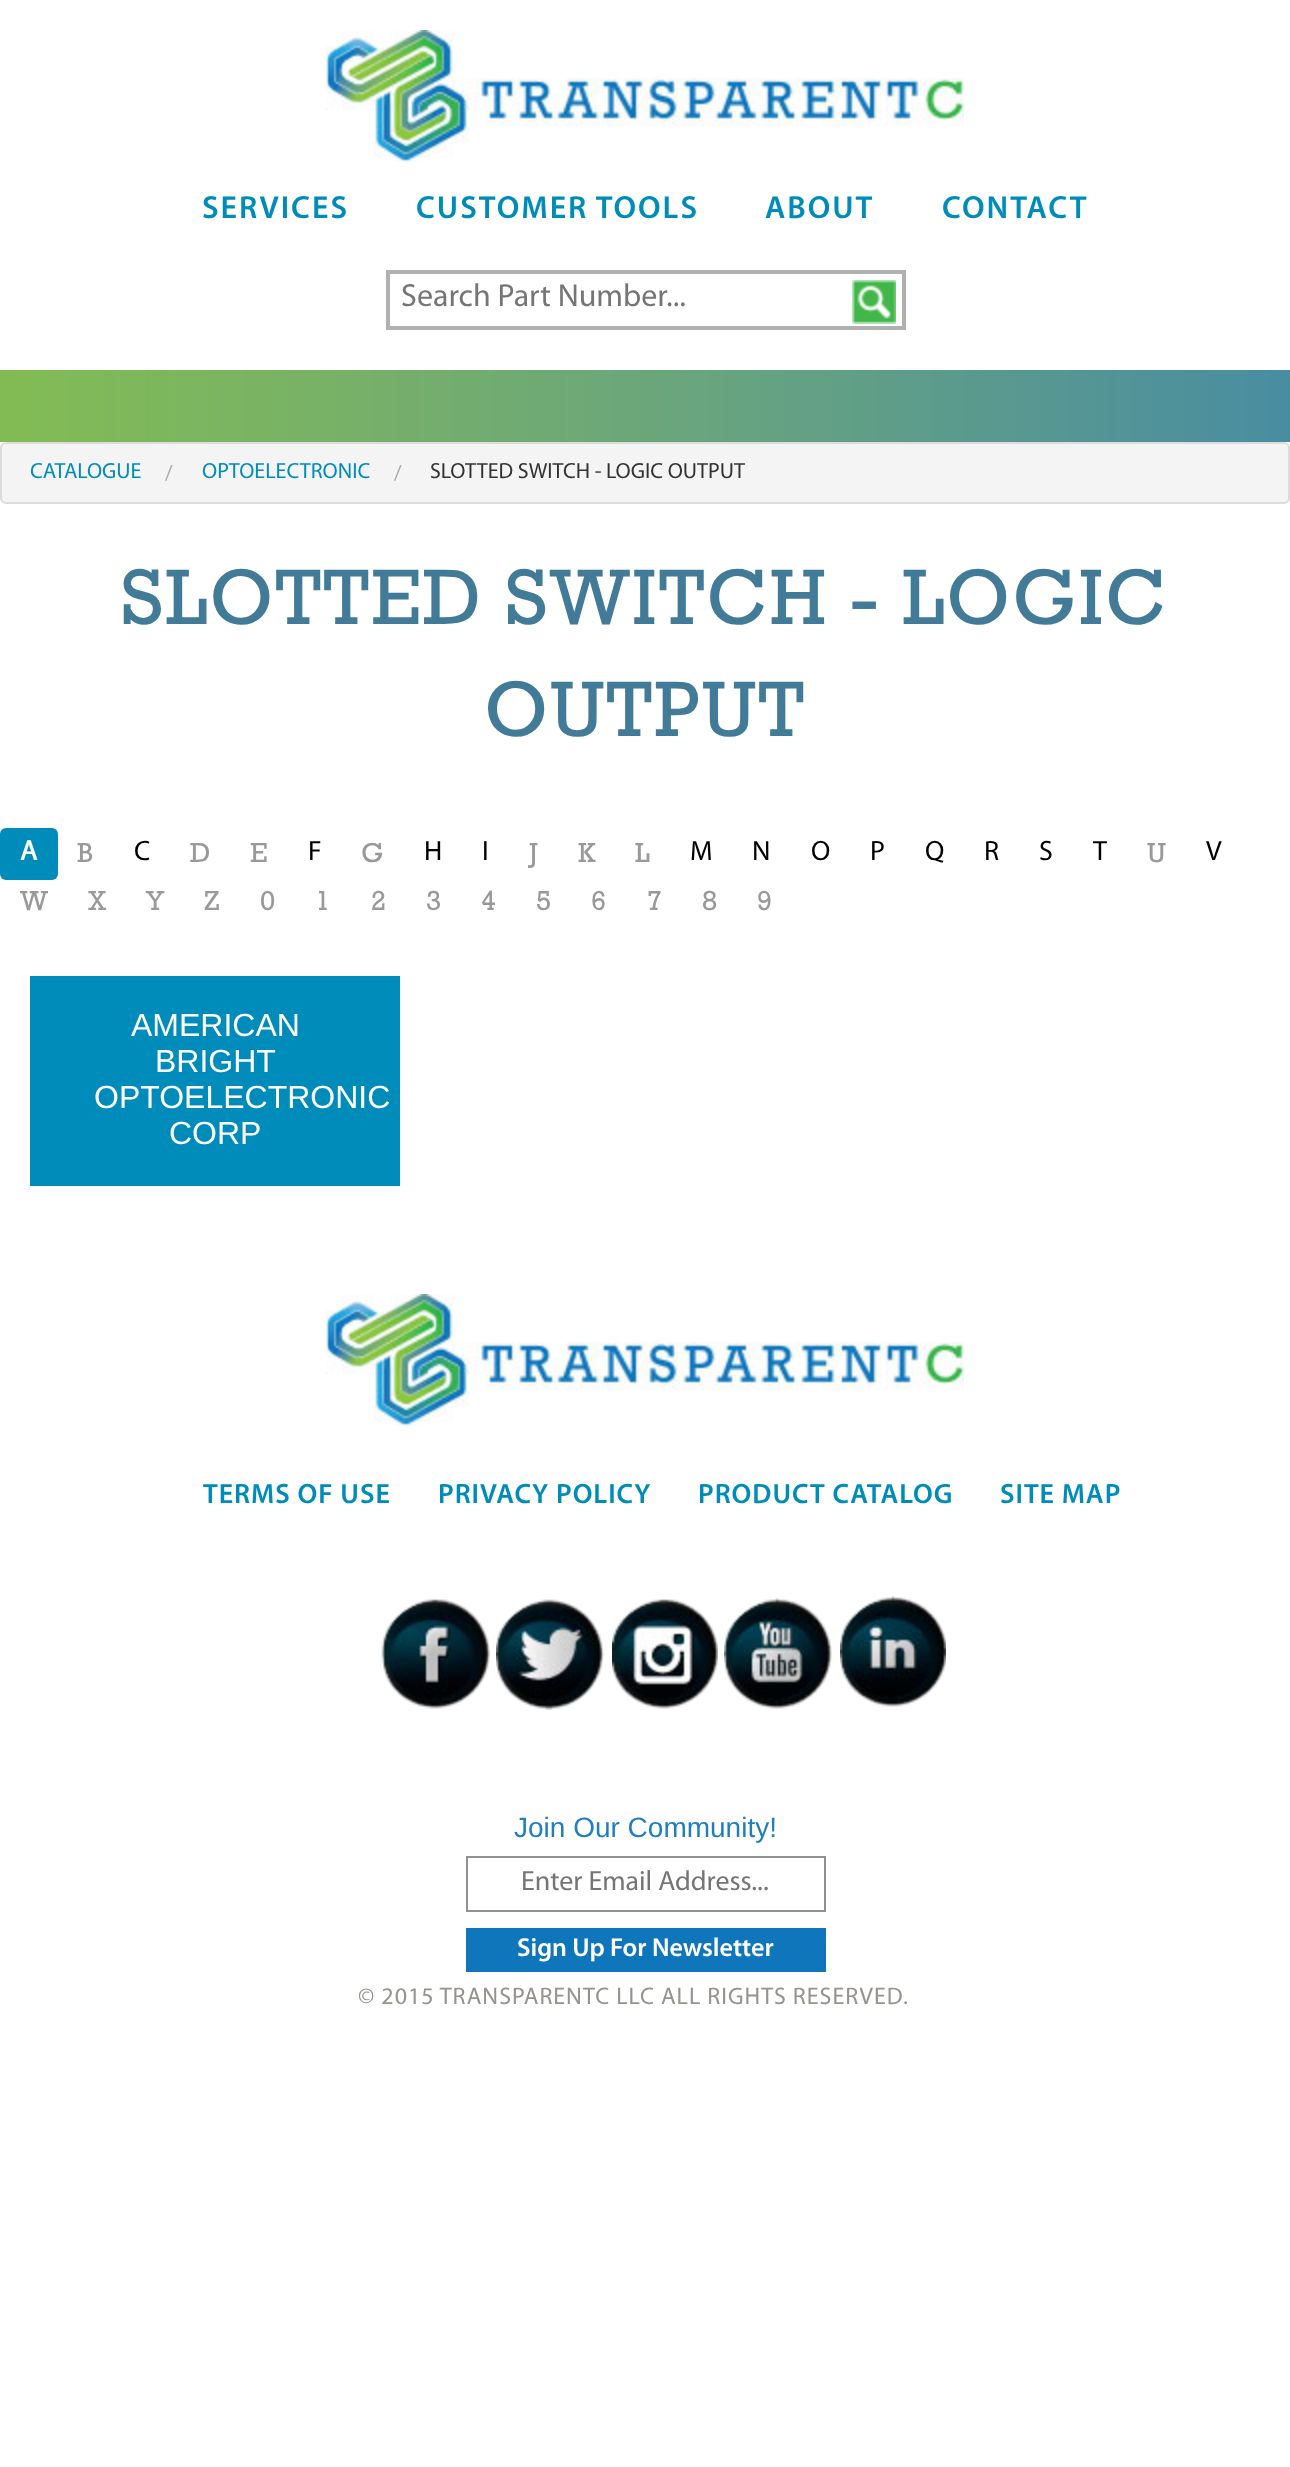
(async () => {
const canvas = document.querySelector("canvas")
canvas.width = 1290
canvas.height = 2467
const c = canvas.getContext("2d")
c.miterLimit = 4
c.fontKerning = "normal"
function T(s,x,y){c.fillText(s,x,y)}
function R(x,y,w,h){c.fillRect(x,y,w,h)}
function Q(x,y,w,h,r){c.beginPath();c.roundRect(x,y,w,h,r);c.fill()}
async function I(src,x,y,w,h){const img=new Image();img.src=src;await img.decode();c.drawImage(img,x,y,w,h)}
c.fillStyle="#fff"
R(0,0,1290,2467)
await I("1.png",326,30,638,132)
c.letterSpacing="2px"
c.font="600 32px Myriad"
c.fillStyle="#008cba"
T("SERVICES",202,218)
T("CUSTOMER TOOLS",416,218)
T("ABOUT",765,218)
T("CONTACT",942,218)
c.strokeStyle="#afb0b0"
c.lineWidth=4
c.strokeRect(388,272,516,56)
c.letterSpacing="0px"
c.font="32px Myriad"
c.fillStyle="#757575"
T("Search Part Number...",401,306)
await I("2.png",852,280,44,44)
await I("3.png",0,370,646,72)
await I("4.png",646,370,644,72)
c.fillStyle="#f4f4f4"
c.beginPath()
c.roundRect(1,443,1288,60,5)
c.fill()
c.strokeStyle="#dcdcdc"
c.lineWidth=2
c.stroke()
c.font="22px Myriad"
c.fillStyle="#008cba"
T("CATALOGUE",30,478)
c.fillStyle="#aaa"
T("/",165,480)
c.fillStyle="#008cba"
T("OPTOELECTRONIC",202,478)
c.fillStyle="#aaa"
T("/",394,480)
c.fillStyle="#333"
T("SLOTTED SWITCH - LOGIC OUTPUT",430,478)
c.letterSpacing="2px"
c.font="80px Rockwell"
c.fillStyle="#417b97"
T("SLOTTED SWITCH - LOGIC",121,624)
T("OUTPUT",484,736)
c.fillStyle="#008cba"
Q(0,828,58,52,6)
c.letterSpacing="0px"
c.font="bold 28px Myriad"
c.fillStyle="#fff"
T("A",20,860)
c.font="28px Rockwell"
c.fillStyle="#999"
T("B",77,862)
c.font="28px Myriad"
c.fillStyle="#000"
T("C",134,860)
c.font="28px Rockwell"
c.fillStyle="#999"
T("D",190,862)
T("E",250,862)
c.font="28px Myriad"
c.fillStyle="#000"
T("F",308,860)
c.font="28px Rockwell"
c.fillStyle="#999"
T("G",361,862)
c.font="28px Myriad"
c.fillStyle="#000"
T("H",424,860)
T("I",482,860)
c.font="28px Rockwell"
c.fillStyle="#999"
T("J",529,862)
T("K",578,862)
T("L",635,862)
c.font="28px Myriad"
c.fillStyle="#000"
T("M",690,860)
T("N",752,860)
T("O",811,860)
T("P",870,860)
T("Q",925,860)
T("R",984,860)
T("S",1039,860)
T("T",1093,860)
c.font="28px Rockwell"
c.fillStyle="#999"
T("U",1147,862)
c.font="28px Myriad"
c.fillStyle="#000"
T("V",1206,860)
c.font="28px Rockwell"
c.fillStyle="#999"
T("W",20,910)
T("X",88,910)
T("Y",146,910)
T("Z",204,910)
T("0",260,910)
T("1",315,910)
T("2",371,910)
T("3",426,910)
T("4",481,910)
T("5",536,910)
T("6",591,910)
T("7",647,910)
T("8",702,910)
T("9",757,910)
c.fillStyle="#008cba"
R(30,976,370,210)
c.font="32px Liberation Sans"
c.fillStyle="#fff"
T("AMERICAN",131,1036)
T("BRIGHT",155,1072)
T("OPTOELECTRONIC",94,1108)
T("CORP",169,1144)
await I("1.png",326,1294,638,132)
c.letterSpacing="1px"
c.font="600 28px Myriad"
c.fillStyle="#008cba"
T("TERMS OF USE",203,1503)
T("PRIVACY POLICY",438,1503)
T("PRODUCT CATALOG",698,1503)
T("SITE MAP",1000,1503)
await I("5.png",381,1599,109,110)
await I("6.png",496,1599,108,111)
await I("7.png",612,1599,106,110)
await I("8.png",724,1598,108,111)
await I("9.png",840,1596,106,111)
c.letterSpacing="0px"
c.font="28px Liberation Sans"
c.fillStyle="#1e7ec0"
T("Join Our Community!",514,1837)
c.strokeStyle="#8f9090"
c.strokeRect(467,1857,358,54)
c.font="28px Myriad"
c.fillStyle="#757575"
T("Enter Email Address...",521,1890)
c.fillStyle="#1076bc"
R(466,1928,360,44)
c.font="600 26px Myriad"
c.fillStyle="#fff"
T("Sign Up For Newsletter",517,1956)
c.letterSpacing="1px"
c.font="24px Myriad"
c.fillStyle="#95938c"
T("© 2015 TRANSPARENTC LLC ALL RIGHTS RESERVED.",358,2004)
})()
